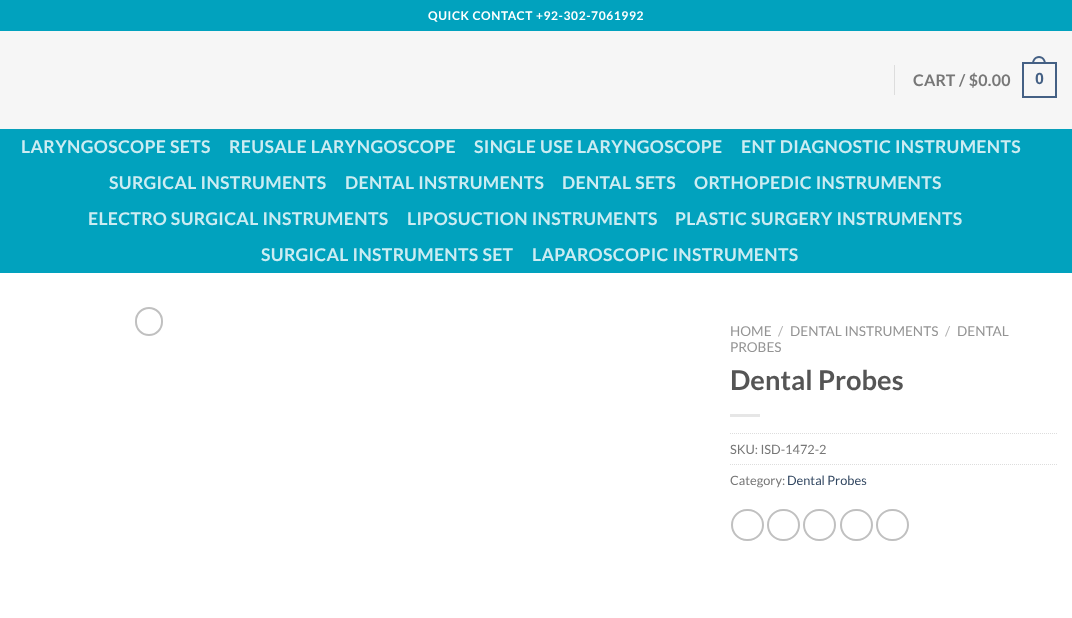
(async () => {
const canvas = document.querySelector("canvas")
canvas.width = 1072
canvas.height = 618
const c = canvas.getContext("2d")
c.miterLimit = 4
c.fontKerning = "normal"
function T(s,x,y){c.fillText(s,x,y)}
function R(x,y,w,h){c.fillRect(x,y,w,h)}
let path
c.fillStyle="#fff"
R(0,0,1072,618)
c.fillStyle="#f6f6f6"
R(0,31,1072,98)
c.fillStyle="#01a2be"
R(0,0,1072,31)
c.letterSpacing="0.6px"
c.font="bold 12px Lato"
c.fillStyle="#fff"
T("QUICK CONTACT +92-302-7061992",428,20)
c.fillStyle="#ddd"
R(894,65,1,30)
c.letterSpacing="0.25px"
c.font="bold 16px Lato"
c.fillStyle="#777"
T("CART / $0.00",913,86)
c.strokeStyle="#446084"
c.lineWidth=2
c.strokeRect(1023,63,33,34)
c.fillStyle="#446084"
path = new Path2D("M1039 56c4.5 0 7 4 7 8h-14c0-4 2.5-8 7-8zm0 2c3.5 0 5 3 5 6h-10c0-3 1.5-6 5-6z")
c.fill(path,"evenodd")
c.font="bold 16px Liberation Sans"
T("0",1035,84)
c.fillStyle="#01a2be"
R(0,129,1072,144)
c.fillStyle="#0d9eb7"
R(15,129,1042,1)
c.letterSpacing="0.35px"
c.font="bold 17.6px Lato"
c.fillStyle="#ccecf2"
T("LARYNGOSCOPE SETS",21,153)
T("REUSALE LARYNGOSCOPE",229,153)
T("SINGLE USE LARYNGOSCOPE",474,153)
T("ENT DIAGNOSTIC INSTRUMENTS",741,153)
T("SURGICAL INSTRUMENTS",109,189)
T("DENTAL INSTRUMENTS",345,189)
T("DENTAL SETS",562,189)
T("ORTHOPEDIC INSTRUMENTS",694,189)
T("ELECTRO SURGICAL INSTRUMENTS",88,225)
T("LIPOSUCTION INSTRUMENTS",407,225)
T("PLASTIC SURGERY INSTRUMENTS",675,225)
T("SURGICAL INSTRUMENTS SET",261,261)
T("LAPAROSCOPIC INSTRUMENTS",532,261)
c.beginPath()
c.roundRect(136,308,26,27,13)
c.strokeStyle="#c0c0c0"
c.stroke()
c.letterSpacing="0px"
c.font="13.6px Lato"
c.fillStyle="#949494"
T("HOME",730,336)
c.fillStyle="#b2b2b2"
T("/",778,336)
c.fillStyle="#949494"
T("DENTAL INSTRUMENTS",790,336)
c.fillStyle="#b2b2b2"
T("/",945,336)
c.fillStyle="#949494"
T("DENTAL",957,336)
T("PROBES",730,352)
c.font="bold 27.25px Lato"
c.fillStyle="#555"
T("Dental Probes",730,390)
c.fillStyle="#e6e6e6"
R(730,414,30,3)
path = new Path2D("M730 433.5h327")
c.strokeStyle="#ddd"
c.lineWidth=1
c.setLineDash([1,1])
c.stroke(path)
c.font="12.75px Lato"
c.fillStyle="#777"
T("SKU: ISD-1472-2",730,454)
path = new Path2D("M730 464.5h327")
c.stroke(path)
T("Category:",730,485)
c.fillStyle="#334862"
T("Dental Probes",787,485)
c.beginPath()
c.roundRect(732,510,31,30,15)
c.strokeStyle="#c0c0c0"
c.lineWidth=2
c.setLineDash([])
c.stroke()
c.beginPath()
c.roundRect(768,510,31,30,15)
c.stroke()
c.beginPath()
c.roundRect(804,510,31,30,15)
c.stroke()
c.beginPath()
c.roundRect(841,510,31,30,15)
c.stroke()
c.beginPath()
c.roundRect(877,510,31,30,15)
c.stroke()
})()
